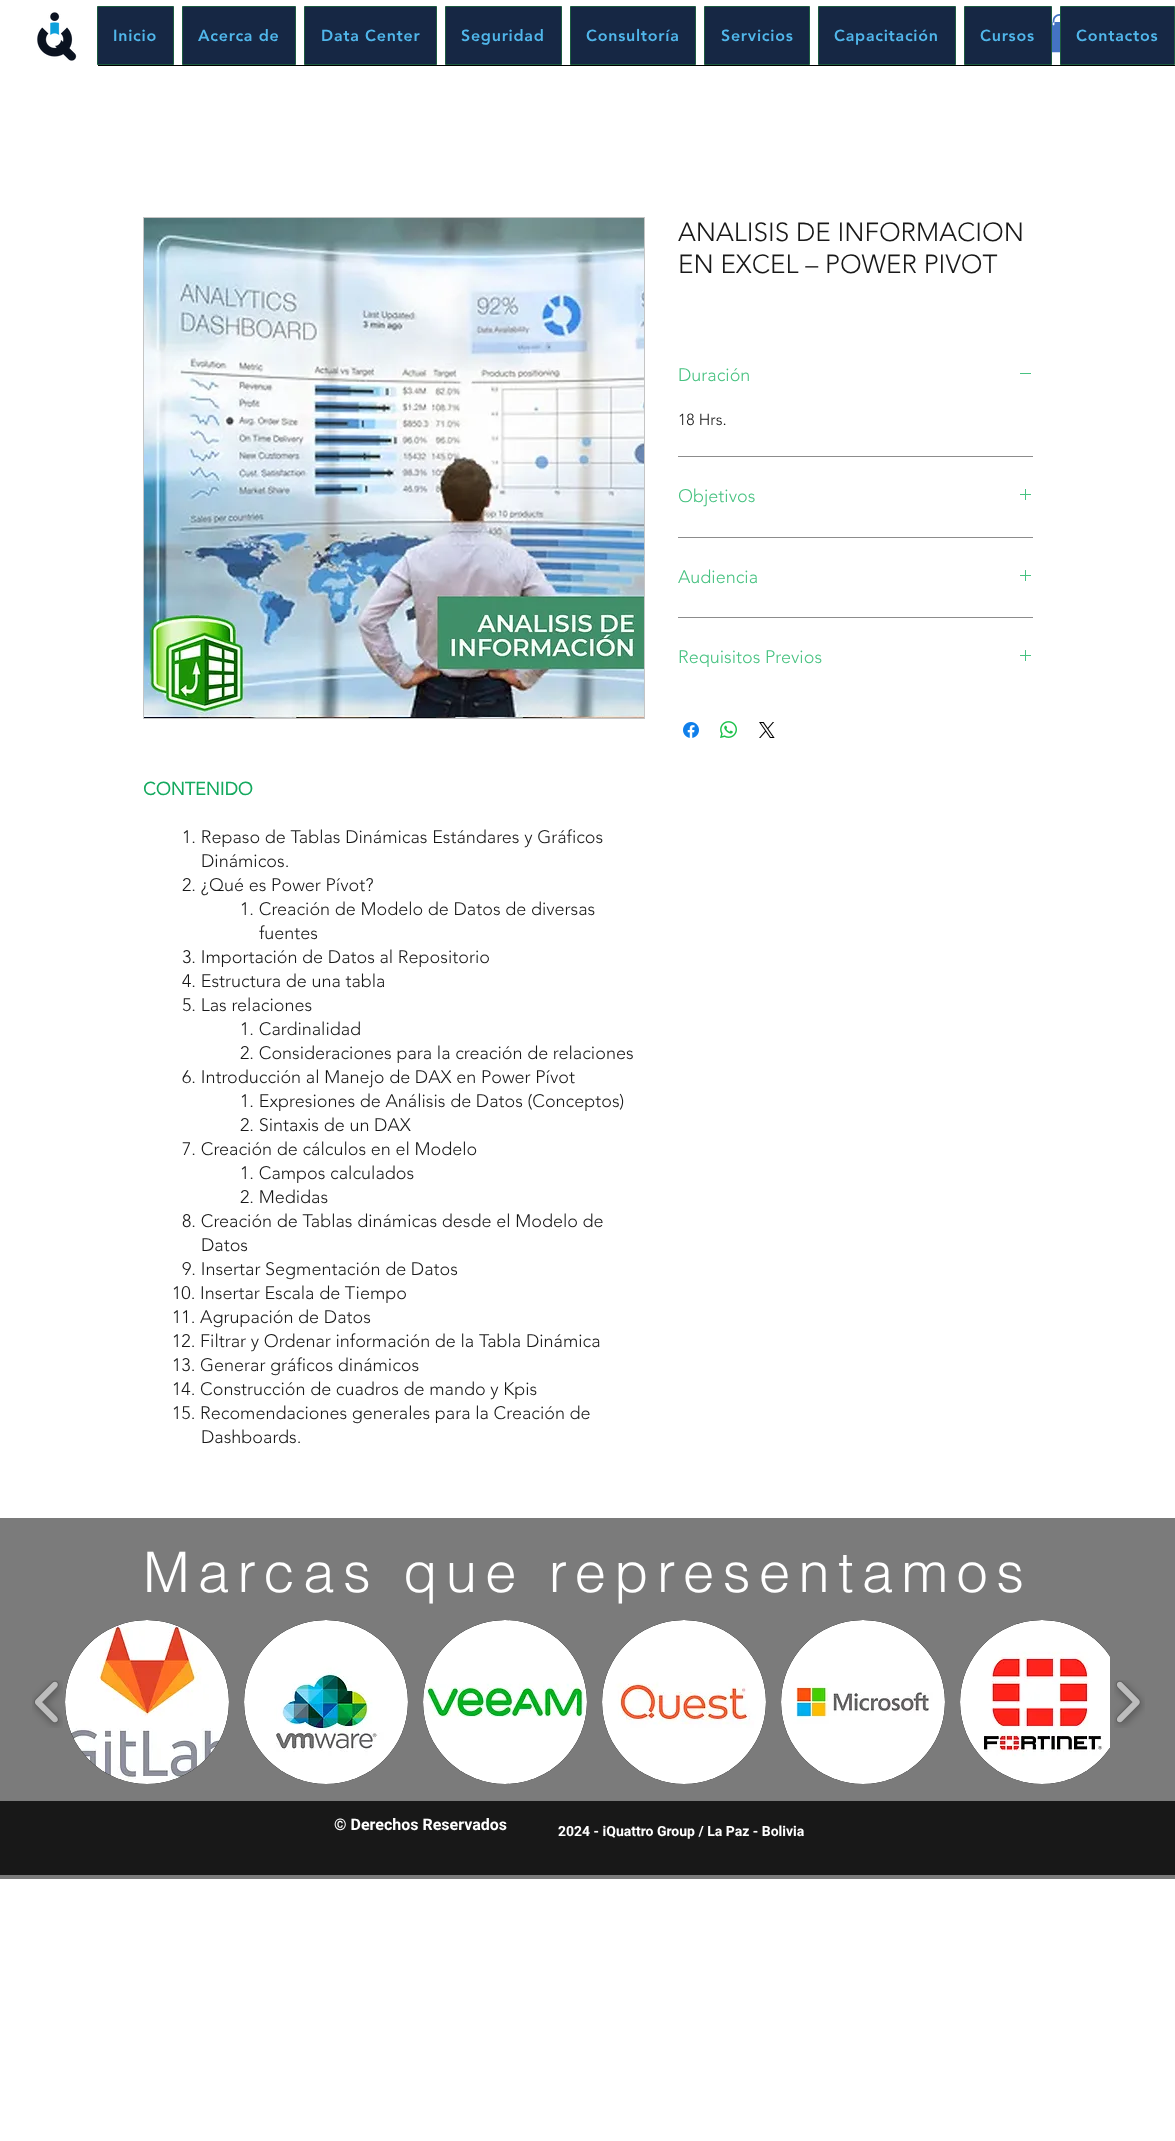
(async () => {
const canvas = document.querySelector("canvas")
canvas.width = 1175
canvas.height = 2141
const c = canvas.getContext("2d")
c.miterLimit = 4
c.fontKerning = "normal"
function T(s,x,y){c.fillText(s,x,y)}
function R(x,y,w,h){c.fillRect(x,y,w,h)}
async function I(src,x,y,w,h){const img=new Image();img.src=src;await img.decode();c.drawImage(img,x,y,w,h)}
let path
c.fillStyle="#fff"
R(0,0,1175,2141)
await I("1.png",37,12,40,49)
await I("2.png",1052,14,8,39)
c.fillStyle="#000"
path = new Path2D("M98 65v1h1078v-59h-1v58z")
c.fill(path)
c.fillStyle="#162744"
c.beginPath()
c.rect(97.5,6.5,76,58)
c.fill()
c.strokeStyle="#1b5b3f"
c.stroke()
c.letterSpacing="0.75px"
c.font="900 16px 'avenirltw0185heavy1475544'"
c.fillStyle="#50b6ea"
T("Inicio",113,41)
c.fillStyle="#162744"
c.beginPath()
c.rect(182.5,6.5,113,58)
c.fill()
c.stroke()
c.fillStyle="#50b6ea"
T("Acerca de",198,41)
c.fillStyle="#162744"
c.beginPath()
c.rect(304.5,6.5,132,58)
c.fill()
c.stroke()
c.fillStyle="#50b6ea"
T("Data Center",321,41)
c.fillStyle="#162744"
c.beginPath()
c.rect(445.5,6.5,116,58)
c.fill()
c.stroke()
c.fillStyle="#50b6ea"
T("Seguridad",461,41)
c.fillStyle="#162744"
c.beginPath()
c.rect(570.5,6.5,125,58)
c.fill()
c.stroke()
c.fillStyle="#50b6ea"
T("Consultoría",586,41)
c.fillStyle="#162744"
c.beginPath()
c.rect(704.5,6.5,105,58)
c.fill()
c.stroke()
c.fillStyle="#50b6ea"
T("Servicios",721,41)
c.fillStyle="#162744"
c.beginPath()
c.rect(818.5,6.5,137,58)
c.fill()
c.stroke()
c.fillStyle="#50b6ea"
T("Capacitación",834,41)
c.fillStyle="#162744"
c.beginPath()
c.rect(964.5,6.5,87,58)
c.fill()
c.stroke()
c.fillStyle="#50b6ea"
T("Cursos",980,41)
c.fillStyle="#162744"
c.beginPath()
c.rect(1060.5,6.5,114,58)
c.fill()
c.stroke()
c.fillStyle="#50b6ea"
T("Contactos",1076,41)
c.letterSpacing="0px"
c.font="300 26px 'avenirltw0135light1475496'"
c.fillStyle="#181818"
T("ANALISIS DE INFORMACION",678,241)
T("EN EXCEL – POWER PIVOT",678,273)
c.fillStyle="#8c8c8c"
R(678,456,355,1)
c.font="300 18px 'avenirltw0135light1475496'"
c.fillStyle="#47c281"
T("Duración",678,381)
R(1020,373,11,1)
c.font="300 16px 'avenirltw0135light1475496'"
c.fillStyle="#181818"
T("18 Hrs.",678,425)
c.fillStyle="#8c8c8c"
R(678,537,355,1)
c.font="300 18px 'avenirltw0135light1475496'"
c.fillStyle="#47c281"
T("Objetivos",678,502)
await I("3.png",1020,489,11,11)
c.fillStyle="#8c8c8c"
R(678,617,355,1)
c.fillStyle="#47c281"
T("Audiencia",678,583)
await I("3.png",1020,570,11,11)
T("Requisitos Previos",678,663)
await I("3.png",1020,650,11,11)
await I("4.png",683,722,16,16)
await I("5.png",720,721,17,17)
await I("6.png",759,722,16,16)
c.strokeStyle="#c5c5c5"
c.strokeRect(143.5,217.5,501,501)
await I("7.png",144,218,500,500)
c.font="bold 18px 'avenirltw0135light1475496'"
c.fillStyle="#15a95f"
T("CONTENIDO",143,795)
c.font="300 18px 'avenirltw0135light1475496'"
c.fillStyle="#181818"
T("1. Repaso de Tablas Dinámicas Estándares y Gráficos",182,843)
T("Dinámicos.",201,867)
T("2. ¿Qué es Power Pívot?",182,891)
T("1. Creación de Modelo de Datos de diversas",240,915)
T("fuentes",259,939)
T("3. Importación de Datos al Repositorio",182,963)
T("4. Estructura de una tabla",182,987)
T("5. Las relaciones",182,1011)
T("1. Cardinalidad",240,1035)
T("2. Consideraciones para la creación de relaciones",240,1059)
T("6. Introducción al Manejo de DAX en Power Pívot",182,1083)
T("1. Expresiones de Análisis de Datos (Conceptos)",240,1107)
T("2. Sintaxis de un DAX",240,1131)
T("7. Creación de cálculos en el Modelo",182,1155)
T("1. Campos calculados",240,1179)
T("2. Medidas",240,1203)
T("8. Creación de Tablas dinámicas desde el Modelo de",182,1227)
T("Datos",201,1251)
T("9. Insertar Segmentación de Datos",182,1275)
T("10. Insertar Escala de Tiempo",172,1299)
T("11. Agrupación de Datos",172,1323)
T("12. Filtrar y Ordenar información de la Tabla Dinámica",172,1347)
T("13. Generar gráficos dinámicos",172,1371)
T("14. Construcción de cuadros de mando y Kpis",172,1395)
T("15. Recomendaciones generales para la Creación de",172,1419)
T("Dashboards.",201,1443)
c.fillStyle="#7b7b7b"
R(0,1518,1175,361)
c.letterSpacing="8.4px"
c.font="300 56px helvetica"
c.fillStyle="#fff"
T("Marcas que representamos",143,1592)
await I("8.png",32,1680,31,48)
c.fillStyle="#181818"
c.beginPath()
c.arc(147,1702,82,0,7)
c.fill()
await I("9.png",65,1620,164,164)
c.beginPath()
c.arc(326,1702,82,0,7)
c.fill()
await I("10.png",244,1620,164,164)
c.beginPath()
c.arc(505,1702,82,0,7)
c.fill()
await I("11.png",423,1620,164,164)
c.beginPath()
c.arc(684,1702,82,0,7)
c.fill()
await I("12.png",602,1620,164,164)
c.beginPath()
c.arc(863,1702,82,0,7)
c.fill()
await I("13.png",781,1620,164,164)
c.save()
c.beginPath()
c.rect(65,1620,1045,164)
c.clip()
c.beginPath()
c.arc(1042,1702,82,0,7)
c.fill()
c.restore()
await I("14.png",960,1620,150,164)
await I("15.png",1114,1680,31,48)
R(0,1801,1175,74)
c.letterSpacing="0px"
c.font="bold 16px Roboto"
c.fillStyle="#fff"
T("© Derechos Reservados",334,1830)
c.font="bold 14px Roboto"
T("2024 - iQuattro Group / La Paz - Bolivia",558,1836)
})()
